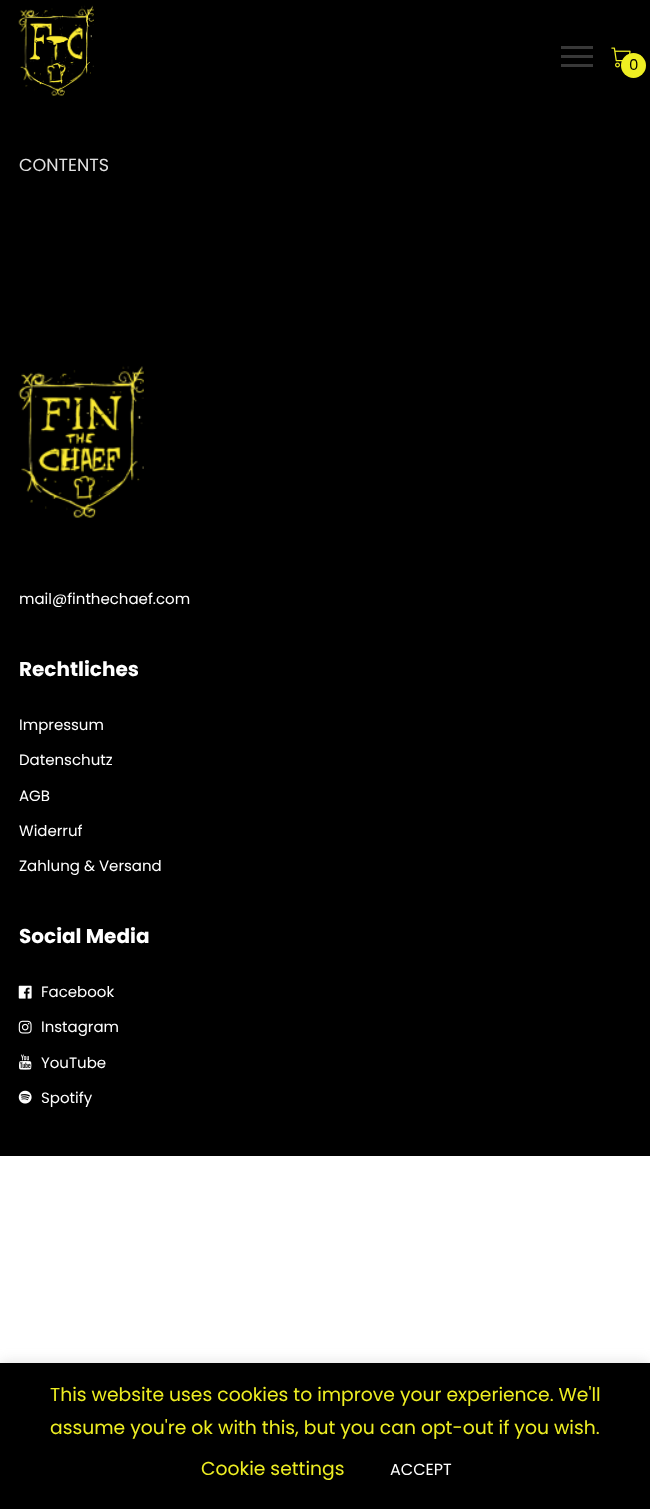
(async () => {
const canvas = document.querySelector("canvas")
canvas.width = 650
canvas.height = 1509
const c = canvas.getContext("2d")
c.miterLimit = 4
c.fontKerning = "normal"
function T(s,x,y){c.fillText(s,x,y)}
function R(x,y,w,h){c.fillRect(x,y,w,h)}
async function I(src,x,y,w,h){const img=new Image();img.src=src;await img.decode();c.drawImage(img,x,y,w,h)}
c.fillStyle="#fff"
R(0,0,650,1509)
c.fillStyle="#000"
R(0,0,650,1156)
await I("1.png",18,5,76,91)
c.fillStyle="#383838"
R(561,55,32,3)
R(561,46,32,3)
R(561,64,32,3)
await I("2.png",611,47,20,21)
c.fillStyle="#ee2"
c.beginPath()
c.arc(633.5,65.5,12.5,0,7)
c.fill()
c.font="15px Poppins"
c.fillStyle="#000"
T("0",629,70)
c.font="17.5px Poppins"
c.fillStyle="#e2e2e2"
T("CONTENTS",19,171)
await I("3.png",18,366,126,152)
c.font="15px Poppins"
c.fillStyle="#fff"
T("mail@finthechaef.com",19,604)
c.font="bold 20px Poppins"
T("Rechtliches",19,676)
c.font="15px Poppins"
T("Impressum",19,730)
T("Datenschutz",19,765)
T("AGB",19,801)
T("Widerruf",19,836)
T("Zahlung & Versand",19,871)
c.font="bold 20px Poppins"
T("Social Media",19,943)
await I("4.png",18,985,14,14)
c.font="15px Poppins"
T("Facebook",41,997)
await I("5.png",18,1020,14,14)
T("Instagram",41,1032)
await I("6.png",19,1054,13,16)
T("YouTube",41,1068)
await I("7.png",18,1090,14,14)
T("Spotify",41,1103)
c.fillStyle="#acabab4d"
c.filter="blur(6px)"
c.beginPath()
c.rect(0,1361,650,148)
c.fill()
c.filter="none"
c.fillStyle="#000"
R(0,1363,650,146)
c.font="18.75px Poppins"
c.fillStyle="#ee2"
T("This website uses cookies to improve your experience. We'll",50,1401)
T("assume you're ok with this, but you can opt-out if you wish.",50,1434)
T("Cookie settings",201,1475)
c.font="16px Poppins"
c.fillStyle="#fff"
T("ACCEPT",390,1475)
})()
